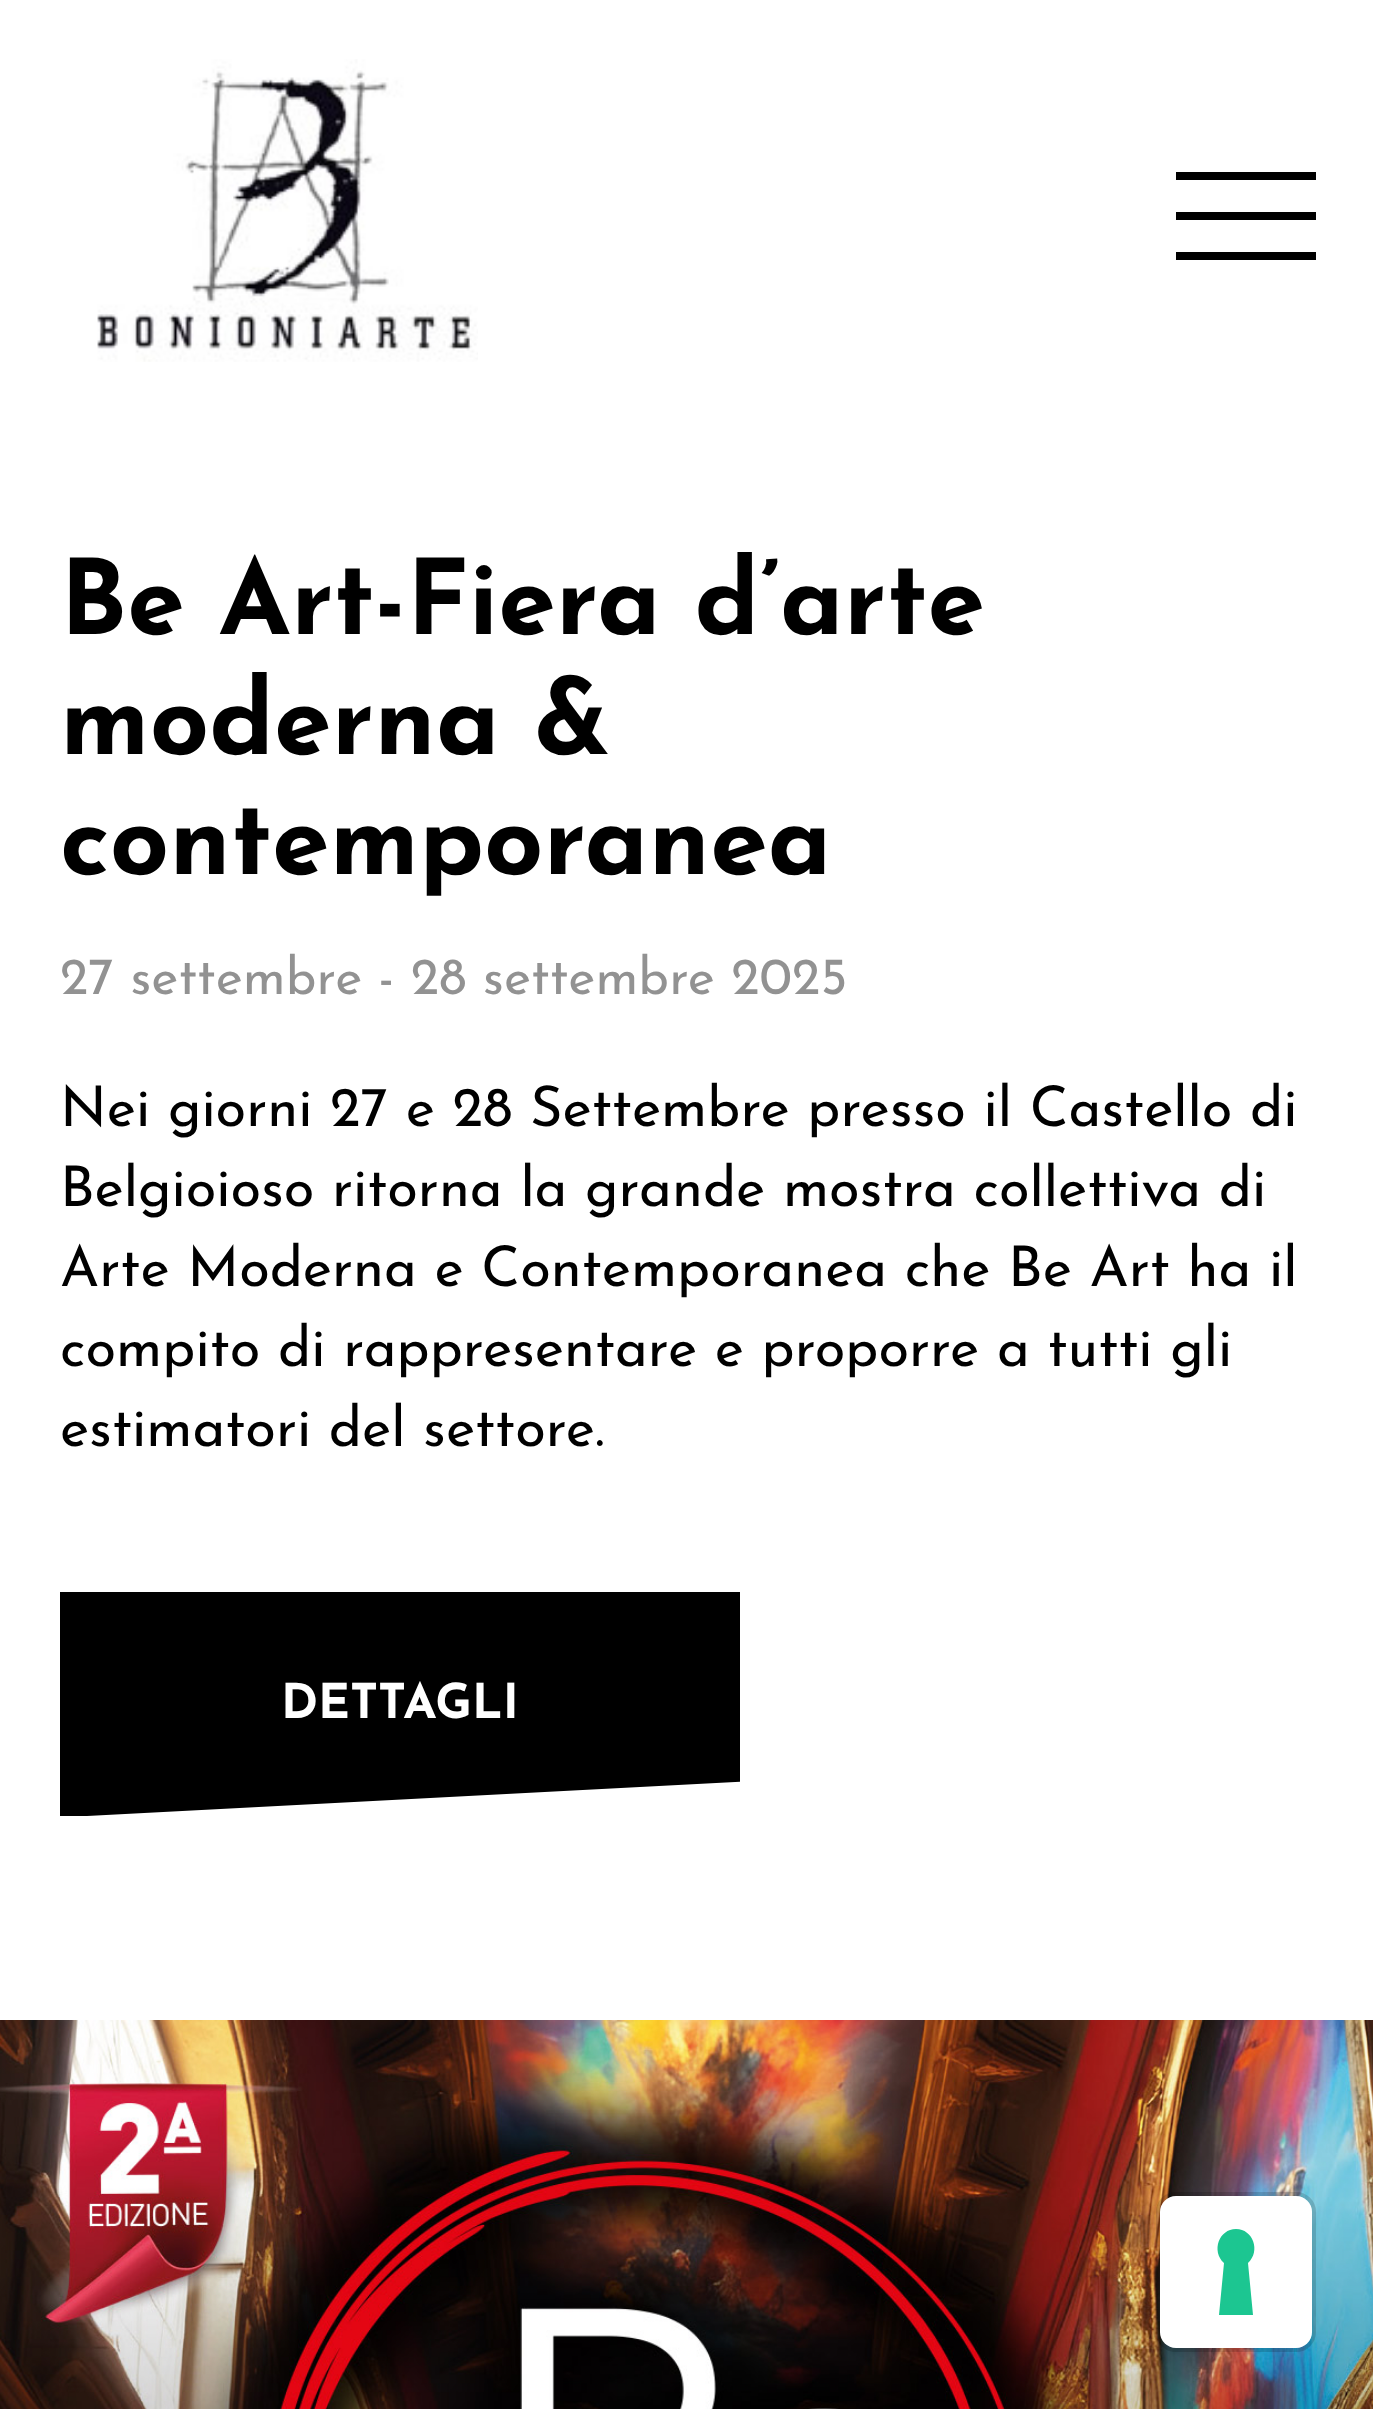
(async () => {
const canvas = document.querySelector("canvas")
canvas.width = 1373
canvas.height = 2409
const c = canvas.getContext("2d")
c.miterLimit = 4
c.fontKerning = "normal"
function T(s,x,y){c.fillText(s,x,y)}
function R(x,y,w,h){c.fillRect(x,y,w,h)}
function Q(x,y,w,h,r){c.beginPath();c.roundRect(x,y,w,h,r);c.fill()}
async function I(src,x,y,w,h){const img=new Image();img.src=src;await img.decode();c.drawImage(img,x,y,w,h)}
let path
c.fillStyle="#fff"
R(0,0,1373,2409)
await I("1.png",97,59,381,303)
c.fillStyle="#000"
R(1176,172,140,8)
R(1176,212,140,8)
R(1176,252,140,8)
c.font="bold 104px Josefin Sans"
T("Be Art-Fiera d’arte",60,634)
T("moderna &",60,754)
T("contemporanea",60,874)
c.font="52px Josefin Sans"
c.fillStyle="#929292"
T("27 settembre - 28 settembre 2025",60,994)
c.font="56px Josefin Sans"
c.fillStyle="#000"
T("Nei giorni 27 e 28 Settembre presso il Castello di",60,1126)
T("Belgioioso ritorna la grande mostra collettiva di",60,1206)
T("Arte Moderna e Contemporanea che Be Art ha il",60,1286)
T("compito di rappresentare e proporre a tutti gli",60,1366)
T("estimatori del settore.",60,1446)
c.save()
c.beginPath()
c.rect(60,1592,680,224)
c.clip()
path = new Path2D("M-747 1557l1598-83l16 301l-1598 84z")
c.fill(path)
c.restore()
c.font="bold 48px Josefin Sans"
c.fillStyle="#fff"
T("DETTAGLI",281,1718)
await I("2.png",0,2020,1373,389)
c.beginPath()
c.roundRect(1158,2194,156,156,18)
c.strokeStyle="#00000026"
c.lineWidth=4
c.stroke()
Q(1160,2196,152,152,16)
c.fillStyle="#1cc691"
path = new Path2D("M1236 2229c17 0 25 22 12 34l5 52h-34l5-52c-13-12-5-34 12-34z")
c.fill(path,"evenodd")
})()
